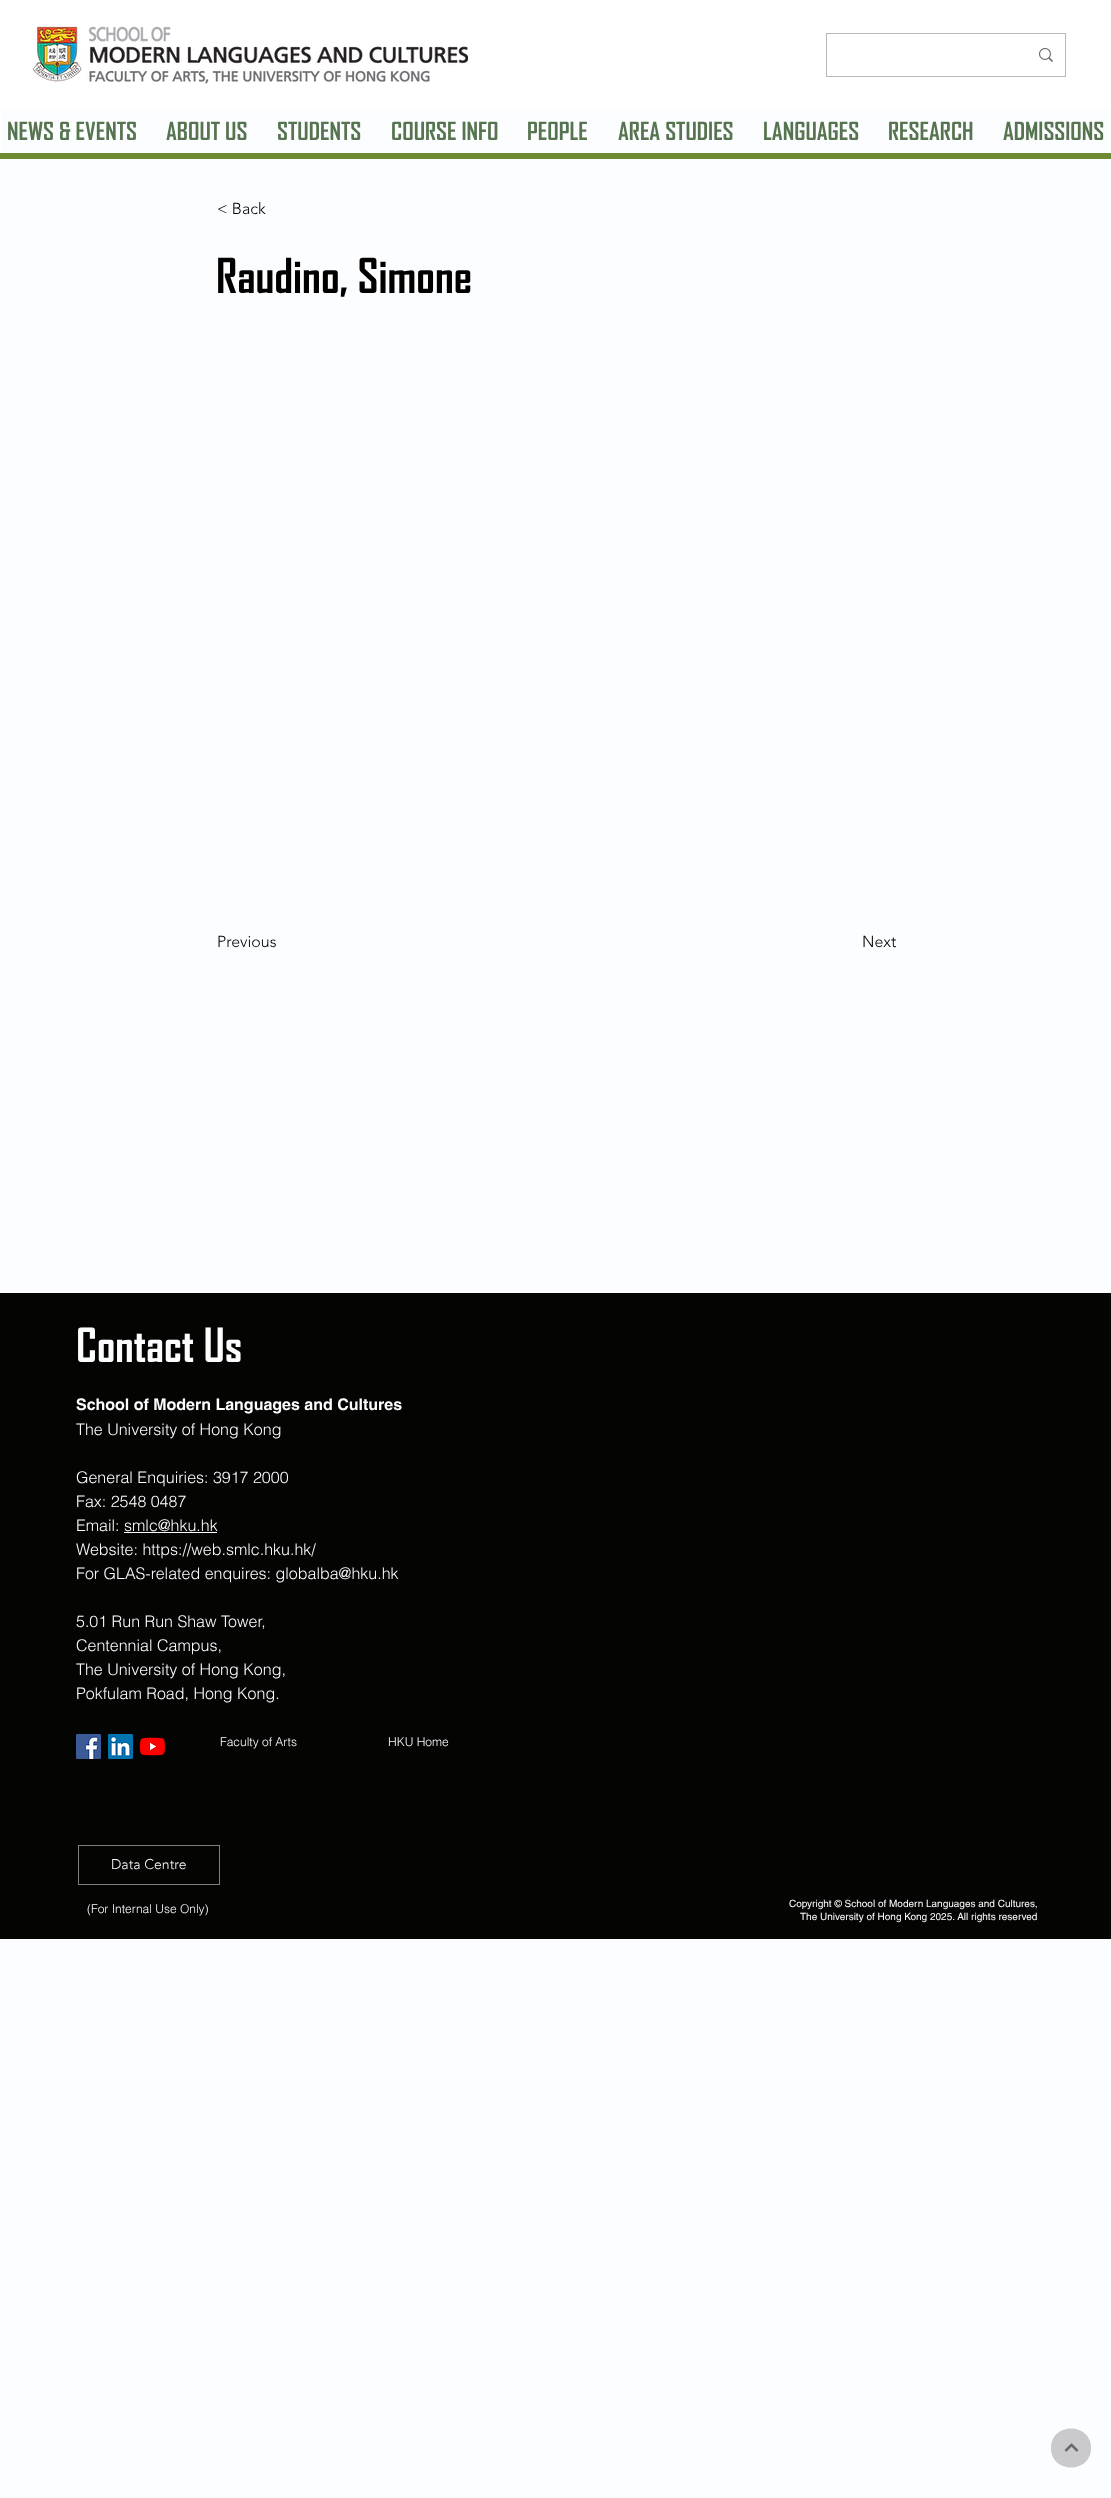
(async () => {
const canvas = document.querySelector("canvas")
canvas.width = 1111
canvas.height = 2498
const c = canvas.getContext("2d")
c.miterLimit = 4
c.fontKerning = "normal"
function T(s,x,y){c.fillText(s,x,y)}
function R(x,y,w,h){c.fillRect(x,y,w,h)}
async function I(src,x,y,w,h){const img=new Image();img.src=src;await img.decode();c.drawImage(img,x,y,w,h)}
let path
c.fillStyle="#fcfdff"
R(0,0,1111,2498)
c.fillStyle="#fff"
R(0,0,1111,153)
await I("1.png",32,26,436,58)
c.strokeStyle="#b8b8b8"
c.strokeRect(826.5,33.5,239,43)
await I("2.png",1039,48,14,14)
c.fillStyle="#fcfdff"
R(2,109,1107,44)
c.font="bold 24px 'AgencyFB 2'"
c.fillStyle="#577450"
T("NEWS & EVENTS",7,140)
T("ABOUT US",166,140)
T("STUDENTS",277,140)
T("COURSE INFO",391,140)
T("PEOPLE",527,140)
T("AREA STUDIES",618,140)
T("LANGUAGES",763,140)
T("RESEARCH",888,140)
T("ADMISSIONS",1003,140)
c.fillStyle="#6e8a33"
R(0,153,1111,6)
c.font="300 16px 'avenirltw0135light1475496'"
c.fillStyle="#000"
T("< Back",217,214)
c.font="bold 46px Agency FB"
T("Raudino, Simone",216,293)
c.font="300 16px 'avenirltw0135light1475496'"
T("Previous",217,947)
T("Next",862,947)
c.fillStyle="#040403"
R(0,1293,1111,646)
c.font="bold 45px Agency FB"
c.fillStyle="#fcfdff"
T("Contact Us",76,1362)
c.font="bold 16px helvetica"
T("School of Modern Languages and Cultures",76,1410)
c.font="300 16px helvetica"
T("The University of Hong Kong",76,1435)
T("General Enquiries: 3917 2000",76,1483)
T("Fax: 2548 0487",76,1507)
T("Email: smlc@hku.hk",76,1531)
R(124,1532,93,1)
T("Website: https://web.smlc.hku.hk/",76,1555)
T("For GLAS-related enquires: globalba@hku.hk",76,1579)
T("5.01 Run Run Shaw Tower,",76,1627)
T("Centennial Campus,",76,1651)
T("The University of Hong Kong,",76,1675)
T("Pokfulam Road, Hong Kong.",76,1699)
await I("3.png",76,1734,25,25)
await I("4.png",108,1734,25,25)
await I("5.png",140,1737,25,19)
c.font="300 12px helvetica"
T("Faculty of Arts",220,1746)
T("HKU Home",388,1746)
c.strokeStyle="#7e7f80"
c.strokeRect(78.5,1845.5,141,39)
c.font="300 14px 'avenirltw0135light1475496'"
T("Data Centre",111,1869)
c.font="300 12px helvetica"
T("(For Internal Use Only)",87,1913)
c.font="10px helvetica"
T("Copyright © School of Modern Languages and Cultures,",789,1907)
T("The University of Hong Kong 2025. All rights reserved",800,1920)
c.fillStyle="#cacacc"
path = new Path2D("M1051 2448c0-26 40-26 40 0c0 26-40 26-40 0z")
c.fill(path)
await I("6.png",1064,2443,15,9)
})()
